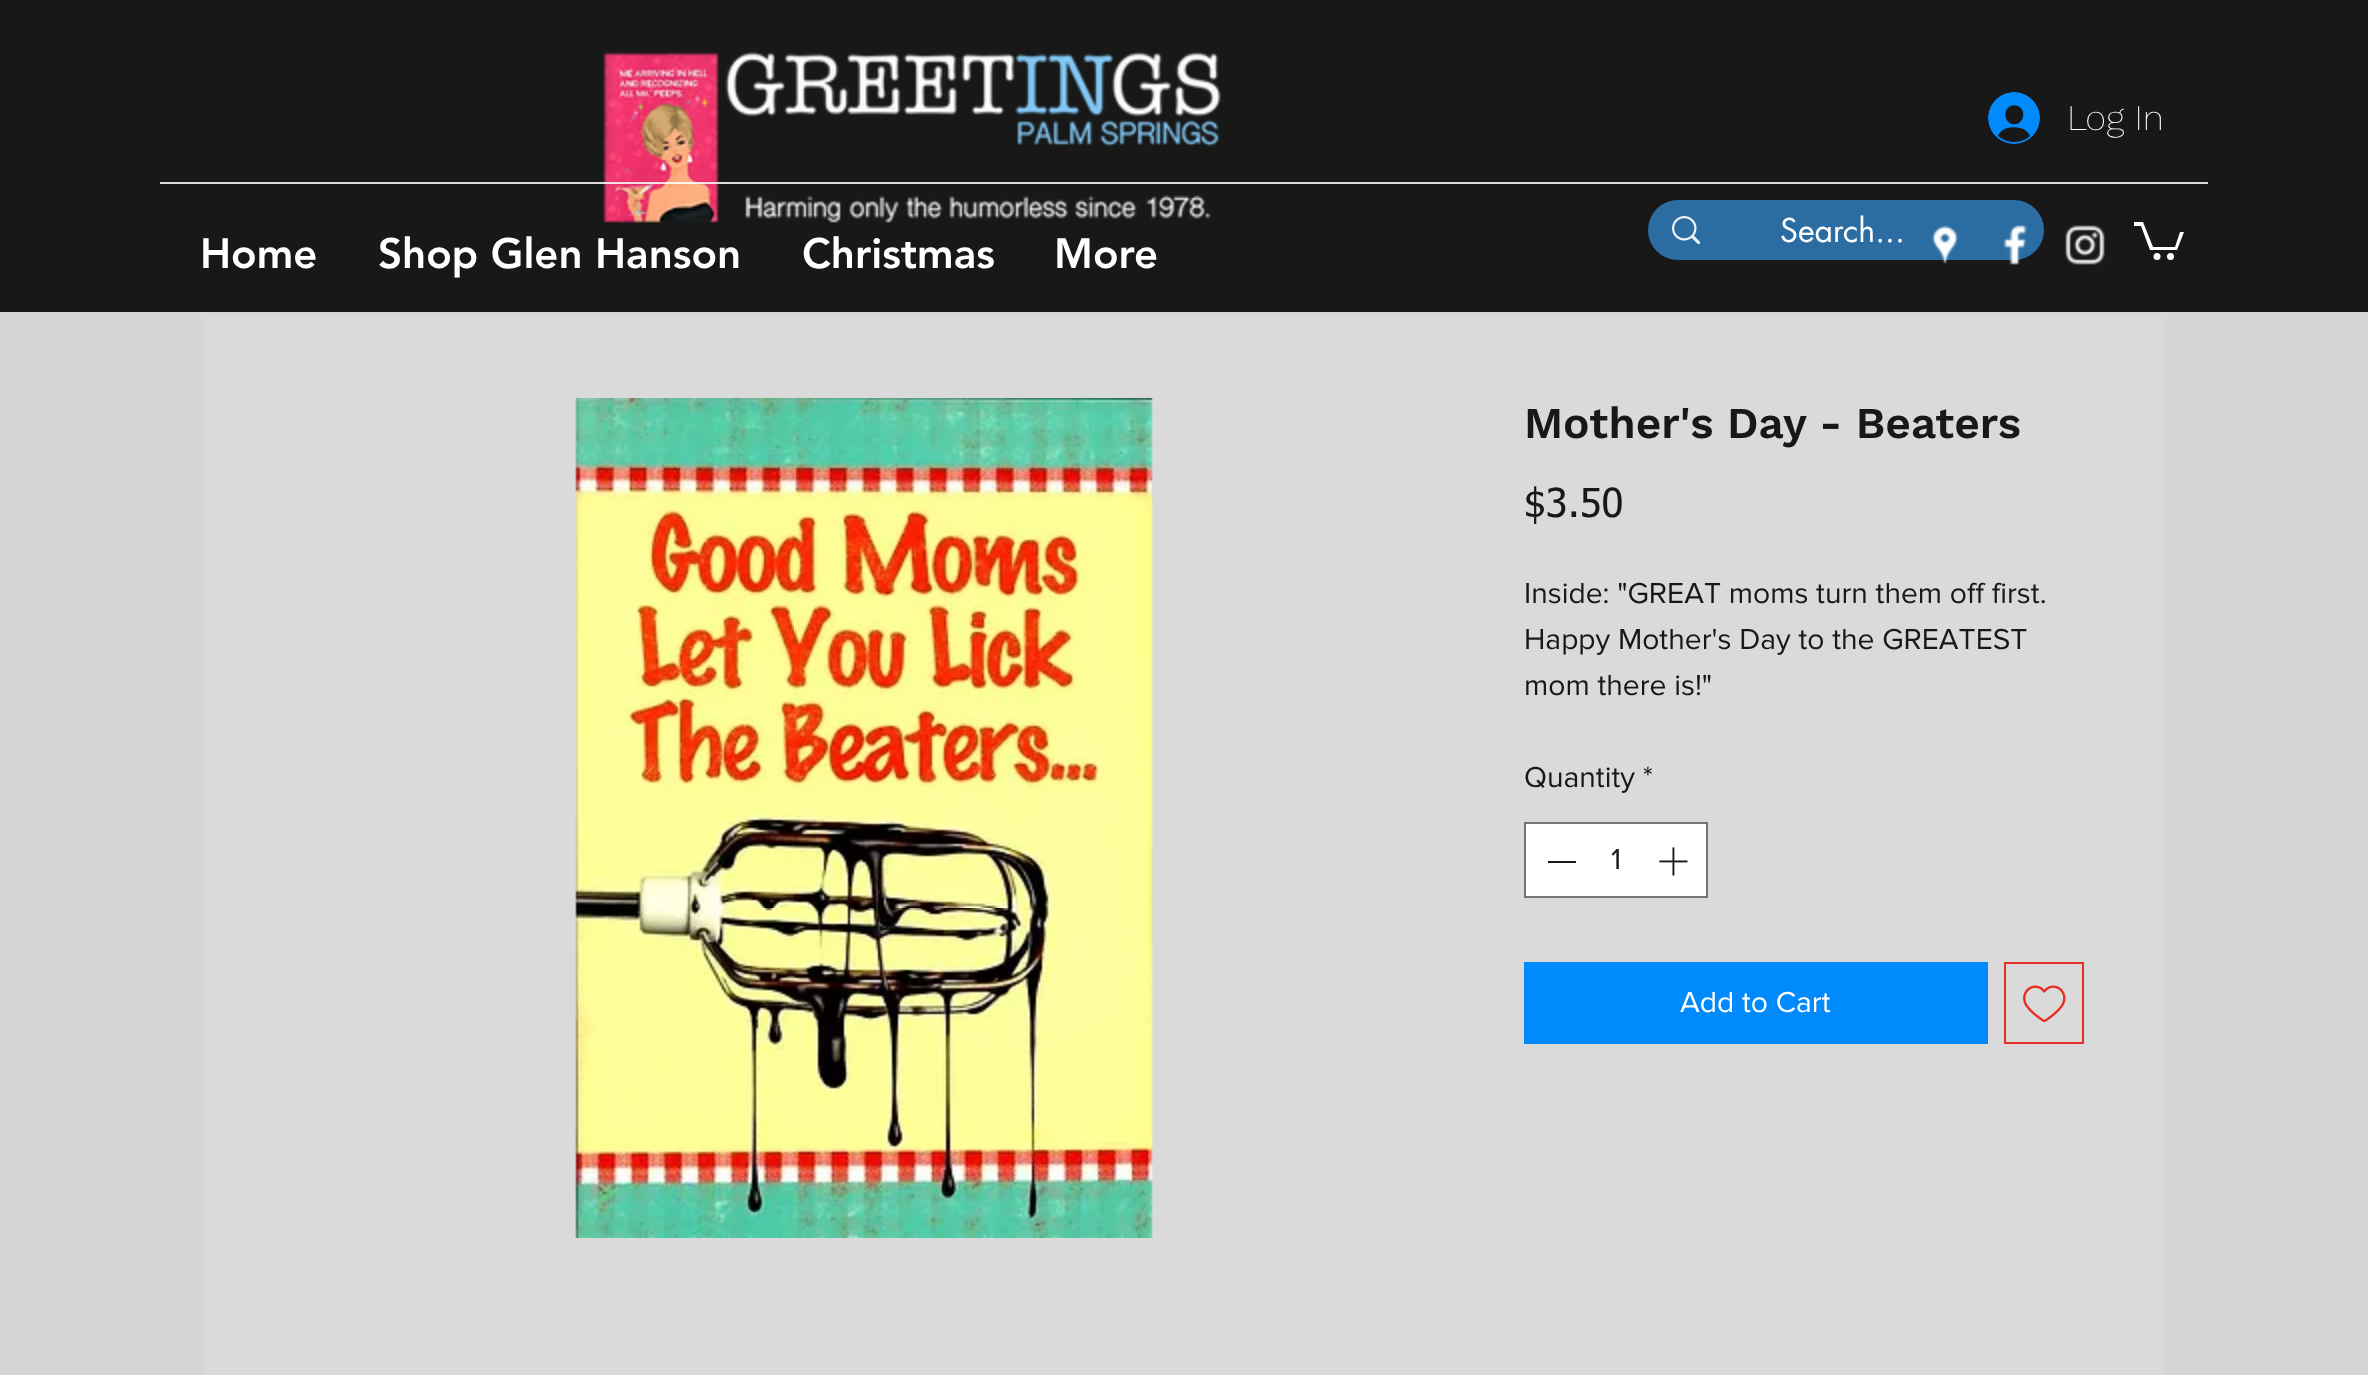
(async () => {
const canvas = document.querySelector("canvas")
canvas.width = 2368
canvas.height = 1375
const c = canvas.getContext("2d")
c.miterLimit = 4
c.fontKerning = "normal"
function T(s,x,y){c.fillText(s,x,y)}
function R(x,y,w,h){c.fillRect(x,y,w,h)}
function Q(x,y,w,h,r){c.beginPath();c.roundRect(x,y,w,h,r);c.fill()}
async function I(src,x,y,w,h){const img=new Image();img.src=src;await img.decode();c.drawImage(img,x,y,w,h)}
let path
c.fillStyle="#d6d6d6"
R(0,0,2368,1375)
c.fillStyle="#181818"
R(0,0,2368,312)
await I("1.png",603,51,618,172)
await I("2.png",1988,92,52,52)
c.font="200 36px Work Sans"
c.fillStyle="#fff"
T("Log In",2067,130)
c.fillStyle="#ffffffd9"
R(160,182,2048,2)
c.fillStyle="#2b6ca3"
Q(1648,200,396,60,30)
await I("3.png",1672,216,28,28)
c.font="32px futura"
c.fillStyle="#fff"
T("Search...",1780,242)
c.font="900 42px 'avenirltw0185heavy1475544'"
T("Home",200,268)
T("Shop Glen Hanson",378,268)
T("Christmas",802,268)
T("More",1054,268)
await I("4.png",1931,225,28,40)
await I("5.png",2003,225,24,40)
await I("6.png",2065,225,40,40)
path = new Path2D("M2184 232l-7 18h-27l-9-24h-7v-4h9l10 25h22l5-15")
c.fill(path)
c.beginPath()
c.arc(2170.5,256.5,3.5,0,7)
c.fill()
c.beginPath()
c.arc(2157,256.5,3.5,0,7)
c.fill()
c.fillStyle="#dadada"
R(204,318,1960,1057)
await I("7.png",575,398,578,840)
c.font="600 44px Work Sans"
c.fillStyle="#181818"
T("Mother's Day - Beaters",1524,438)
c.font="40px tahoma"
T("$3.50",1524,517)
c.font="30px 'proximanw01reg'"
T("Inside: \"GREAT moms turn them off first.",1524,603)
T("Happy Mother's Day to the GREATEST",1524,649)
T("mom there is!\"",1524,695)
T("Quantity *",1524,787)
c.fillStyle="#fff"
c.beginPath()
c.rect(1525,823,182,74)
c.fill()
c.strokeStyle="#747474"
c.lineWidth=2
c.stroke()
c.fillStyle="#181818"
R(1548,861,28,2)
T("1",1611,869)
await I("8.png",1659,847,29,29)
c.fillStyle="#008afc"
R(1524,962,464,82)
c.fillStyle="#fff"
T("Add to Cart",1680,1012)
c.strokeStyle="#e52e26"
c.strokeRect(2005,963,78,80)
await I("9.png",2023,985,43,37)
})()
